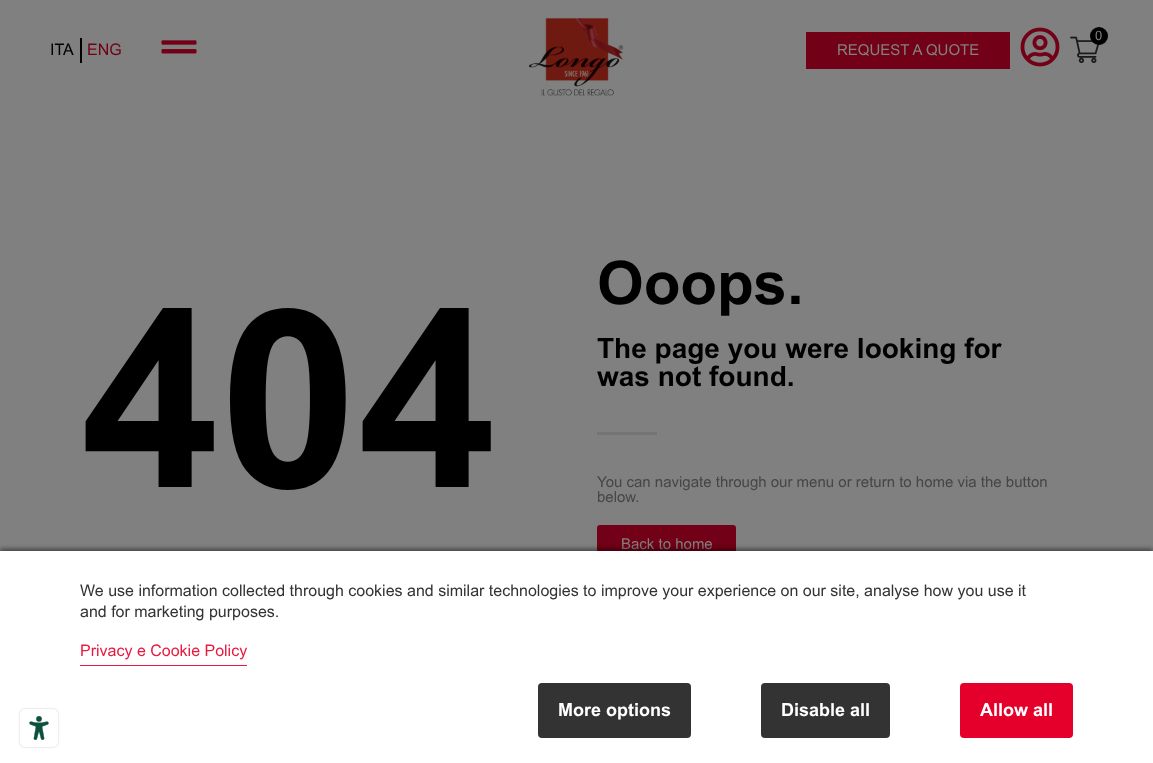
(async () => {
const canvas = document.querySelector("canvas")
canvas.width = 1153
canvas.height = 763
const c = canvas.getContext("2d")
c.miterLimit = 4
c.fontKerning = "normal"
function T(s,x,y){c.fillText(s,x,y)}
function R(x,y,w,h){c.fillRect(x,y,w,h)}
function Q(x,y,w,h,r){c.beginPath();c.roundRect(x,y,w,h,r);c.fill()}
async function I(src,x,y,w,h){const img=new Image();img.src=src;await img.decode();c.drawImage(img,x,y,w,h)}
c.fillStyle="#808080"
R(0,0,1153,763)
c.font="16px Arial"
c.fillStyle="#000"
T("ITA",50,55)
R(80,38,2,25)
c.fillStyle="#720016"
T("ENG",87,55)
await I("1.png",161,40,36,14)
await I("2.png",529,18,94,78)
await I("3.png",1020,27,40,40)
await I("4.png",1070,36,30,27)
c.fillStyle="#000"
c.beginPath()
c.arc(1099,36,9,0,7)
c.fill()
c.font="13px Arial"
c.fillStyle="#808080"
T("0",1095,40)
c.fillStyle="#720016"
R(806,32,204,37)
c.font="15px Arial"
c.fillStyle="#808080"
T("REQUEST A QUOTE",837,55)
c.font="bold 249px Arial"
c.fillStyle="#000"
T("404",81,487)
c.font="bold 60px Arial"
T("Ooops.",597,304)
c.font="bold 28px Arial"
T("The page you were looking for",597,358)
T("was not found.",597,386)
c.fillStyle="#747474"
R(597,432,60,3)
c.font="15px Arial"
c.fillStyle="#464646"
T("You can navigate through our menu or return to home via the button",597,487)
T("below.",597,502)
c.fillStyle="#720016"
Q(597,525,139,39,3)
c.fillStyle="#808080"
T("Back to home",621,549)
c.fillStyle="#00000080"
c.filter="blur(2.5px)"
c.beginPath()
c.rect(0,549,1153,212)
c.fill()
c.filter="none"
c.fillStyle="#fff"
R(0,551,1153,212)
c.font="16px Arial"
c.fillStyle="#333"
T("We use information collected through cookies and similar technologies to improve your experience on our site, analyse how you use it",80,596)
T("and for marketing purposes.",80,617)
c.fillStyle="#e71a40"
T("Privacy e Cookie Policy",80,656)
R(80,665,167,1)
c.fillStyle="#333"
Q(538,683,153,55,4)
c.font="bold 18px Arial"
c.fillStyle="#fff"
T("More options",558,716)
c.fillStyle="#333"
Q(761,683,129,55,4)
c.fillStyle="#fff"
T("Disable all",781,716)
c.fillStyle="#e4002b"
Q(960,683,113,55,4)
c.fillStyle="#fff"
T("Allow all",980,716)
c.fillStyle="#00000033"
c.filter="blur(1px)"
c.beginPath()
c.roundRect(20,709,38,38,5)
c.fill()
c.filter="none"
c.fillStyle="#fff"
Q(20,709,38,38,5)
await I("5.png",29,716,20,24)
})()
